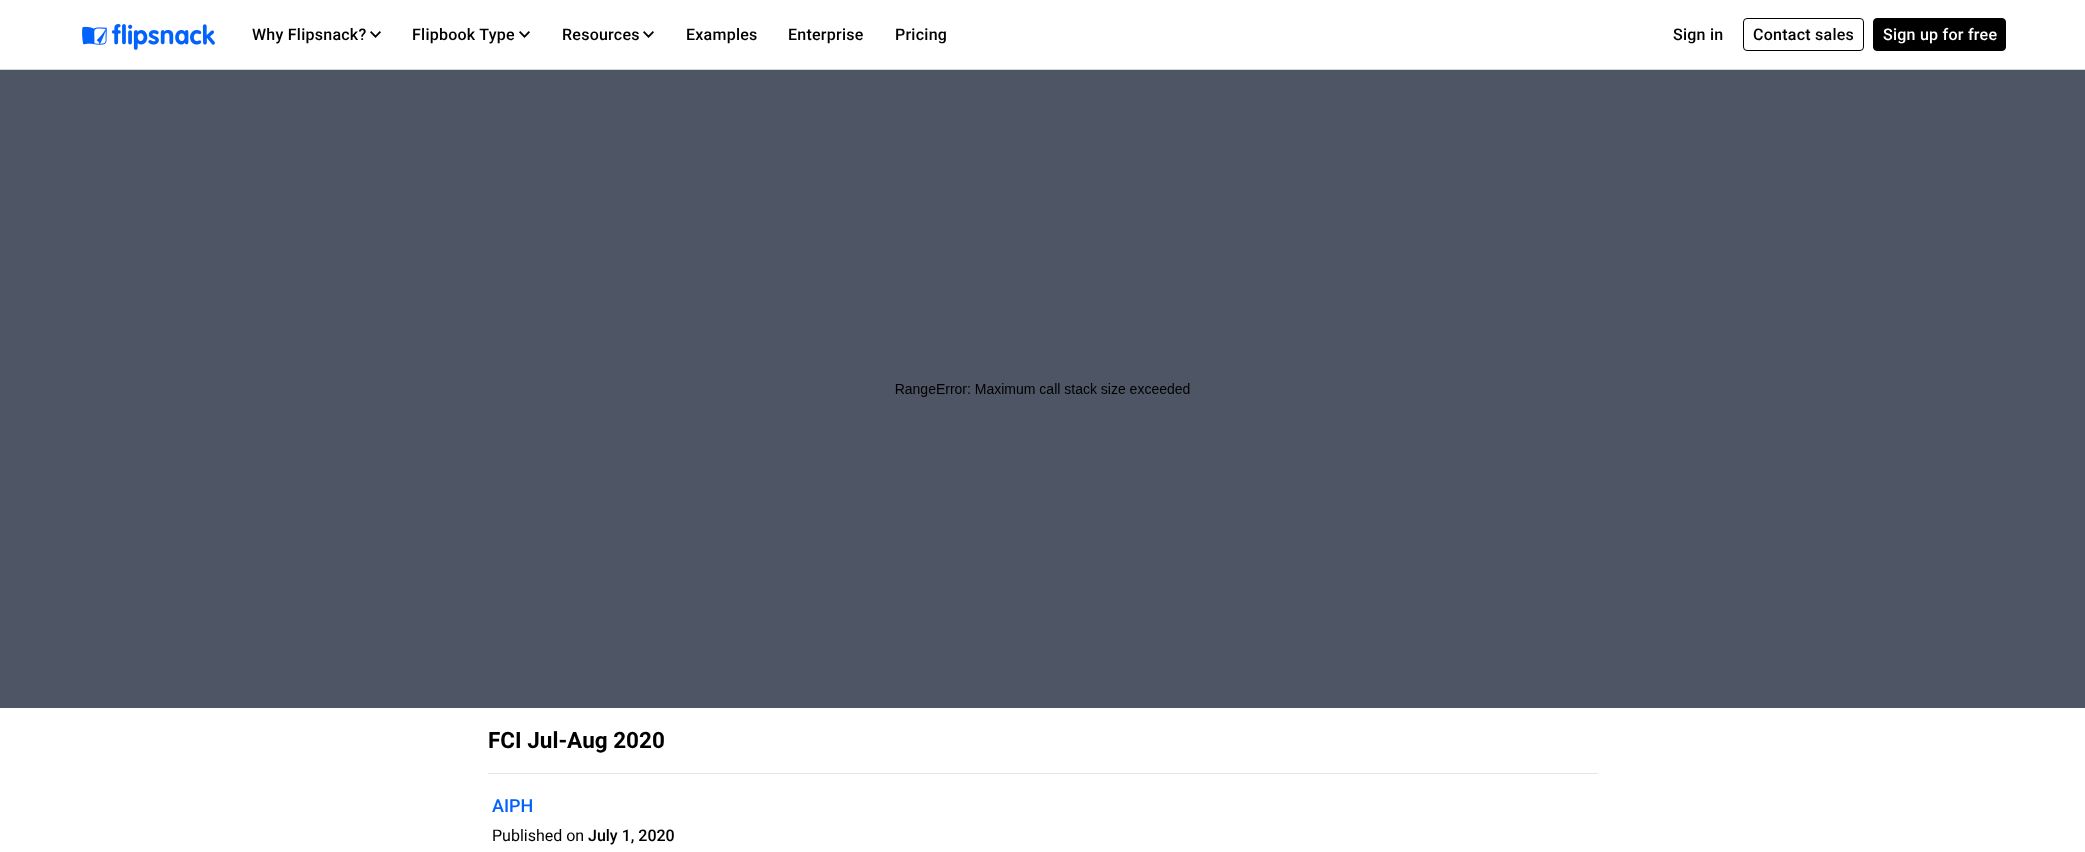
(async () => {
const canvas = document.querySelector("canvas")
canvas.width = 2085
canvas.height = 852
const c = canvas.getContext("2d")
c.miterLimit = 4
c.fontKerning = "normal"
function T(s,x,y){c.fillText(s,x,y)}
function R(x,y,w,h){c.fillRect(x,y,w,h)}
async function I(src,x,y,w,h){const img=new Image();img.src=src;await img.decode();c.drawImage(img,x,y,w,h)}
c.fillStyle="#fff"
R(0,0,2085,852)
c.fillStyle="#d5d5d5"
R(0,69,2085,1)
await I("1.png",82,24,133,26)
c.letterSpacing="0.25px"
c.font="500 16px Roboto"
c.fillStyle="#000"
T("Why Flipsnack?",252,40)
await I("2.png",370,31,11,7)
T("Flipbook Type",412,40)
await I("2.png",519,31,11,7)
T("Resources",562,40)
await I("2.png",643,31,11,7)
T("Examples",686,40)
T("Enterprise",788,40)
T("Pricing",895,40)
T("Sign in",1673,40)
c.beginPath()
c.roundRect(1743.5,18.5,120,32,3.5)
c.strokeStyle="#000"
c.stroke()
T("Contact sales",1753,40)
c.beginPath()
c.roundRect(1873.5,18.5,132,32,3.5)
c.fill()
c.stroke()
c.fillStyle="#fff"
T("Sign up for free",1883,40)
c.fillStyle="#4e5565"
R(0,70,2085,638)
await I("3.png",895,383,295,14)
c.letterSpacing="0px"
c.font="bold 22.5px Roboto"
c.fillStyle="#000"
T("FCI Jul-Aug 2020",488,748)
c.fillStyle="#e6e6e6"
R(488,773,1110,1)
c.font="500 18px Roboto"
c.fillStyle="#0362fc"
T("AIPH",492,812)
c.font="16px Roboto"
c.fillStyle="#000"
T("Published on",492,841)
c.font="500 16px Roboto"
T("July 1, 2020",588,841)
})()
